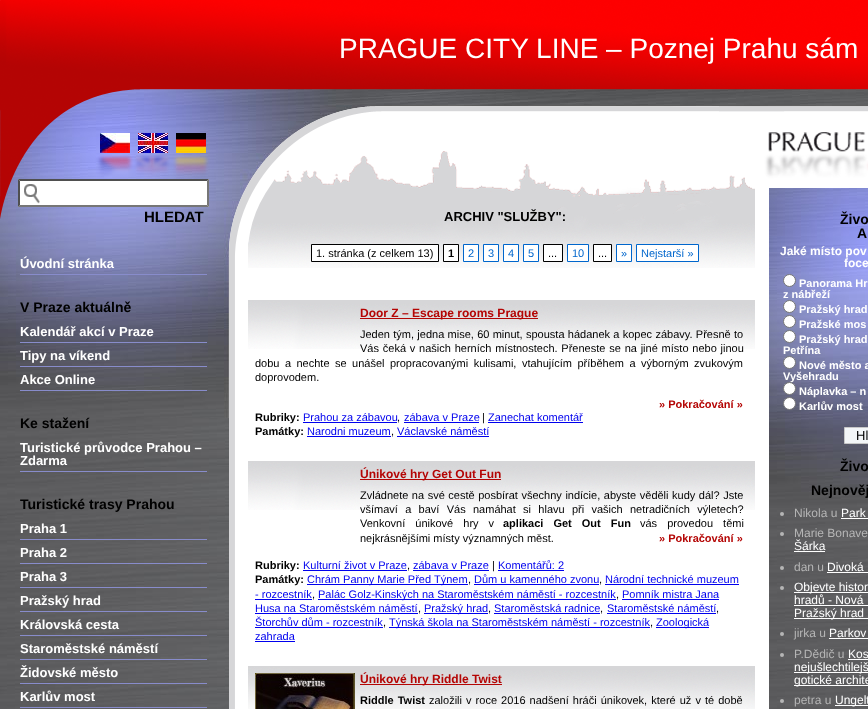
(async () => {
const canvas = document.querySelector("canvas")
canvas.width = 868
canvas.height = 709
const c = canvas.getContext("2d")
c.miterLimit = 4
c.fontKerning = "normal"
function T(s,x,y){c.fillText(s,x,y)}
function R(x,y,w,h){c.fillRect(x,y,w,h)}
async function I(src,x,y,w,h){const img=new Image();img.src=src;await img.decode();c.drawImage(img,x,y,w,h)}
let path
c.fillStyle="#fff"
R(0,0,868,709)
await I("1.png",0,0,868,110)
c.font="28px Liberation Sans"
T("PRAGUE CITY LINE – Poznej Prahu sám",339,58)
await I("2.png",0,268,868,441)
await I("3.png",0,110,235,308)
await I("4.png",100,133,30,20)
await I("5.png",138,133,30,20)
await I("6.png",176,133,30,20)
R(18,179,191,28)
await I("7.png",24,184,16,20)
c.fillStyle="#4f4f4f"
path = new Path2D("M18 179h191l-2 2h-187z")
c.fill(path)
c.fillStyle="#767676"
path = new Path2D("M209 179v28l-2-2v-24z")
c.fill(path)
path = new Path2D("M209 207h-191l2-2h187z")
c.fill(path)
c.fillStyle="#4f4f4f"
path = new Path2D("M18 207v-28l2 2v24z")
c.fill(path)
c.font="bold 15px Liberation Sans"
c.fillStyle="#000"
T("HLEDAT",144,222)
c.fillStyle="#888ccb"
R(20,274,187,1)
c.font="bold 13px Liberation Sans"
c.fillStyle="#fff"
T("Úvodní stránka",20,268)
c.font="bold 14px Liberation Sans"
c.fillStyle="#000"
T("V Praze aktuálně",20,312)
c.fillStyle="#888ccb"
R(20,342,187,1)
c.font="bold 13px Liberation Sans"
c.fillStyle="#fff"
T("Kalendář akcí v Praze",20,336)
c.fillStyle="#888ccb"
R(20,366,187,1)
c.fillStyle="#fff"
T("Tipy na víkend",20,360)
c.fillStyle="#888ccb"
R(20,390,187,1)
c.fillStyle="#fff"
T("Akce Online",20,384)
c.font="bold 14px Liberation Sans"
c.fillStyle="#000"
T("Ke stažení",20,428)
c.fillStyle="#888ccb"
R(20,471,187,1)
c.font="bold 13px Liberation Sans"
c.fillStyle="#fff"
T("Turistické průvodce Prahou –",20,452)
T("Zdarma",20,465)
c.font="bold 14px Liberation Sans"
c.fillStyle="#000"
T("Turistické trasy Prahou",20,509)
c.fillStyle="#888ccb"
R(20,539,187,1)
c.font="bold 13px Liberation Sans"
c.fillStyle="#fff"
T("Praha 1",20,533)
c.fillStyle="#888ccb"
R(20,563,187,1)
c.fillStyle="#fff"
T("Praha 2",20,557)
c.fillStyle="#888ccb"
R(20,587,187,1)
c.fillStyle="#fff"
T("Praha 3",20,581)
c.fillStyle="#888ccb"
R(20,611,187,1)
c.fillStyle="#fff"
T("Pražský hrad",20,605)
c.fillStyle="#888ccb"
R(20,635,187,1)
c.fillStyle="#fff"
T("Královská cesta",20,629)
c.fillStyle="#888ccb"
R(20,659,187,1)
c.fillStyle="#fff"
T("Staroměstské náměstí",20,653)
c.fillStyle="#888ccb"
R(20,683,187,1)
c.fillStyle="#fff"
T("Židovské město",20,677)
c.fillStyle="#888ccb"
R(20,707,187,1)
c.fillStyle="#fff"
T("Karlův most",20,701)
await I("8.png",235,110,533,158)
c.fillStyle="#000"
T("ARCHIV \"SLUŽBY\":",444,221)
c.fillStyle="#fff"
c.beginPath()
c.rect(311.5,244.5,127,17)
c.fill()
c.strokeStyle="#000"
c.stroke()
c.font="11px Liberation Sans"
c.fillStyle="#000"
T("1. stránka (z celkem 13)",316,257)
c.fillStyle="#fff"
c.beginPath()
c.rect(443.5,244.5,15,17)
c.fill()
c.stroke()
c.font="bold 11px Liberation Sans"
c.fillStyle="#000"
T("1",448,257)
c.fillStyle="#fff"
c.beginPath()
c.rect(463.5,244.5,15,17)
c.fill()
c.strokeStyle="#06c"
c.stroke()
c.font="11px Liberation Sans"
c.fillStyle="#06c"
T("2",468,257)
c.fillStyle="#fff"
c.beginPath()
c.rect(483.5,244.5,15,17)
c.fill()
c.stroke()
c.fillStyle="#06c"
T("3",488,257)
c.fillStyle="#fff"
c.beginPath()
c.rect(503.5,244.5,15,17)
c.fill()
c.stroke()
c.fillStyle="#06c"
T("4",508,257)
c.fillStyle="#fff"
c.beginPath()
c.rect(523.5,244.5,15,17)
c.fill()
c.stroke()
c.fillStyle="#06c"
T("5",528,257)
c.fillStyle="#fff"
c.beginPath()
c.rect(543.5,244.5,19,17)
c.fill()
c.strokeStyle="#000"
c.stroke()
c.fillStyle="#000"
T("...",548,257)
c.fillStyle="#fff"
c.beginPath()
c.rect(567.5,244.5,21,17)
c.fill()
c.strokeStyle="#06c"
c.stroke()
c.fillStyle="#06c"
T("10",572,257)
c.fillStyle="#fff"
c.beginPath()
c.rect(593.5,244.5,18,17)
c.fill()
c.strokeStyle="#000"
c.stroke()
c.fillStyle="#000"
T("...",598,257)
c.fillStyle="#fff"
c.beginPath()
c.rect(616.5,244.5,15,17)
c.fill()
c.strokeStyle="#06c"
c.stroke()
c.fillStyle="#06c"
T("»",621,257)
c.fillStyle="#fff"
c.beginPath()
c.rect(636.5,244.5,62,17)
c.fill()
c.stroke()
c.fillStyle="#06c"
T("Nejstarší »",641,257)
await I("9.png",248,300,507,49)
c.fillStyle="#b40504"
R(360,318,178,1)
c.font="bold 12px Liberation Sans"
T("Door Z – Escape rooms Prague",360,317)
c.wordSpacing="0.25px"
c.font="11px Liberation Sans"
c.fillStyle="#000"
T("Jeden tým, jedna mise, 60 minut, spousta hádanek a kopec zábavy. Přesně to",360,338)
c.wordSpacing="0.75px"
T("Vás čeká v našich herních místnostech. Přeneste se na jiné místo nebo jinou",360,352)
c.wordSpacing="2.4px"
T("dobu a nechte se unášel propracovanými kulisami, vtahujícím příběhem a výborným zvukovým",255,367)
c.wordSpacing="0px"
T("doprovodem.",255,381)
c.font="bold 11px Liberation Sans"
c.fillStyle="#b40504"
T("» Pokračování »",659,408)
c.fillStyle="#000"
T("Rubriky:",255,421)
c.font="11px Liberation Sans"
c.fillStyle="#00e"
T("Prahou za zábavou",303,421)
R(303,422,94,1)
c.fillStyle="#000"
T(",",397,421)
c.fillStyle="#00e"
T("zábava v Praze",404,421)
R(404,422,75,1)
c.fillStyle="#000"
T("|",482,421)
c.fillStyle="#00e"
T("Zanechat komentář",488,421)
R(488,422,95,1)
c.font="bold 11px Liberation Sans"
c.fillStyle="#000"
T("Památky:",255,435)
c.font="11px Liberation Sans"
c.fillStyle="#00e"
T("Narodni muzeum",307,435)
R(307,436,84,1)
c.fillStyle="#000"
T(",",391,435)
c.fillStyle="#00e"
T("Václavské náměstí",397,435)
R(397,436,92,1)
await I("9.png",248,461,507,49)
c.fillStyle="#b40504"
R(360,479,141,1)
c.font="bold 12px Liberation Sans"
T("Únikové hry Get Out Fun",360,478)
c.wordSpacing="0.5px"
c.font="11px Liberation Sans"
c.fillStyle="#000"
T("Zvládnete na své cestě posbírat všechny indície, abyste věděli kudy dál? Jste",360,499)
c.wordSpacing="4.25px"
T("všímaví a baví Vás namáhat si hlavu při vašich netradičních výletech?",360,513)
c.wordSpacing="7px"
T("Venkovní únikové hry v",360,527)
c.font="bold 11px Liberation Sans"
T("aplikaci Get Out Fun",503,527)
c.font="11px Liberation Sans"
T("vás provedou těmi",640,527)
c.wordSpacing="0px"
T("nejkrásnějšími místy významných měst.",360,542)
c.font="bold 11px Liberation Sans"
c.fillStyle="#b40504"
T("» Pokračování »",659,542)
c.fillStyle="#000"
T("Rubriky:",255,569)
c.font="11px Liberation Sans"
c.fillStyle="#00e"
T("Kulturní život v Praze",303,569)
R(303,570,104,1)
c.fillStyle="#000"
T(",",407,569)
c.fillStyle="#00e"
T("zábava v Praze",413,569)
R(413,570,76,1)
c.fillStyle="#000"
T("|",492,569)
c.fillStyle="#00e"
T("Komentářů: 2",498,569)
R(498,570,66,1)
c.font="bold 11px Liberation Sans"
c.fillStyle="#000"
T("Památky:",255,583)
c.fillStyle="#00e"
R(307,584,161,1)
c.font="11px Liberation Sans"
T("Chrám Panny Marie Před Týnem",307,583)
c.fillStyle="#000"
T(",",468,583)
c.fillStyle="#00e"
T("Dům u kamenného zvonu",474,583)
R(474,584,125,1)
c.fillStyle="#000"
T(",",599,583)
c.fillStyle="#00e"
T("Národní technické muzeum",605,583)
R(605,584,134,1)
T("- rozcestník",255,598)
R(255,599,57,1)
c.fillStyle="#000"
T(",",312,598)
c.fillStyle="#00e"
R(318,599,298,1)
T("Palác Golz-Kinských na Staroměstském náměstí - rozcestník",318,598)
c.fillStyle="#000"
T(",",616,598)
c.fillStyle="#00e"
T("Pomník mistra Jana",622,598)
R(622,599,97,1)
T("Husa na Staroměstském náměstí",255,612)
R(255,613,163,1)
c.fillStyle="#000"
T(",",418,612)
c.fillStyle="#00e"
R(424,613,64,1)
T("Pražský hrad",424,612)
c.fillStyle="#000"
T(",",488,612)
c.fillStyle="#00e"
T("Staroměstská radnice",494,612)
R(494,613,106,1)
c.fillStyle="#000"
T(",",600,612)
c.fillStyle="#00e"
T("Staroměstské náměstí",607,612)
R(607,613,109,1)
c.fillStyle="#000"
T(",",716,612)
c.fillStyle="#00e"
T("Štorchův dům - rozcestník",255,626)
R(255,627,128,1)
c.fillStyle="#000"
T(",",383,626)
c.fillStyle="#00e"
R(389,627,261,1)
T("Týnská škola na Staroměstském náměstí - rozcestník",389,626)
c.fillStyle="#000"
T(",",650,626)
c.fillStyle="#00e"
R(656,627,53,1)
T("Zoologická",656,626)
T("zahrada",255,640)
R(255,641,40,1)
await I("10.png",248,666,507,43)
await I("11.png",255,673,100,36)
c.fillStyle="#b40504"
R(360,684,142,1)
c.font="bold 12px Liberation Sans"
T("Únikové hry Riddle Twist",360,683)
c.wordSpacing="1px"
c.font="bold 11px Liberation Sans"
c.fillStyle="#000"
T("Riddle Twist",360,704)
c.font="11px Liberation Sans"
T("založili v roce 2016 nadšení hráči únikovek, které už v té době",429,704)
await I("12.png",768,110,100,407)
c.wordSpacing="0px"
c.font="bold 14px Liberation Sans"
T("Živo",840,224)
T("A",857,238)
c.font="bold 12px Liberation Sans"
c.fillStyle="#fff"
T("Jaké místo pov",780,255)
T("foce",844,267)
c.beginPath()
c.arc(789.5,280.5,6,0,7)
c.fill()
c.strokeStyle="#767676"
c.stroke()
c.font="bold 11px Liberation Sans"
T("Panorama Hr",799,287)
T("z nábřeží",783,298)
c.beginPath()
c.arc(789.5,306.5,6,0,7)
c.fill()
c.stroke()
T("Pražský hrad",799,313)
c.beginPath()
c.arc(789.5,321.5,6,0,7)
c.fill()
c.stroke()
T("Pražské mos",799,328)
c.beginPath()
c.arc(789.5,336.5,6,0,7)
c.fill()
c.stroke()
T("Pražský hrad",799,343)
T("Petřína",783,354)
c.beginPath()
c.arc(789.5,362.5,6,0,7)
c.fill()
c.stroke()
T("Nové město a",799,369)
T("Vyšehradu",783,380)
c.beginPath()
c.arc(789.5,388.5,6,0,7)
c.fill()
c.stroke()
T("Náplavka – n",799,395)
c.beginPath()
c.arc(789.5,403.5,6,0,7)
c.fill()
c.stroke()
T("Karlův most",799,410)
c.fillStyle="#f3f6f8"
c.beginPath()
c.rect(844.5,427.5,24,16)
c.fill()
c.strokeStyle="#c8c8c8"
c.stroke()
c.font="13px Liberation Sans"
c.fillStyle="#000"
T("Hl",856,440)
c.font="bold 14px Liberation Sans"
T("Živo",840,471)
T("Nejnověj",811,495)
c.fillStyle="#b5b5b5"
c.beginPath()
c.arc(782,514,2,0,7)
c.fill()
c.font="12px Liberation Sans"
T("Nikola u",794,517)
c.fillStyle="#fff"
T("Park",841,517)
R(841,518,27,1)
c.fillStyle="#b5b5b5"
c.beginPath()
c.arc(782,534,2,0,7)
c.fill()
T("Marie Bonave",794,537)
c.fillStyle="#fff"
T("Šárka",794,550)
R(794,551,31,1)
c.fillStyle="#b5b5b5"
c.beginPath()
c.arc(782,568,2,0,7)
c.fill()
T("dan u",794,571)
c.fillStyle="#fff"
T("Divoká",827,571)
R(827,572,41,1)
c.fillStyle="#b5b5b5"
c.beginPath()
c.arc(782,588,2,0,7)
c.fill()
c.fillStyle="#fff"
R(794,592,74,1)
T("Objevte histor",794,591)
T("hradů - Nová",794,604)
R(794,605,74,1)
R(794,618,74,1)
T("Pražský hrad",794,617)
c.fillStyle="#b5b5b5"
c.beginPath()
c.arc(782,634,2,0,7)
c.fill()
T("jirka u",794,637)
c.fillStyle="#fff"
T("Parkov",829,637)
R(829,638,39,1)
c.fillStyle="#b5b5b5"
c.beginPath()
c.arc(782,655,2,0,7)
c.fill()
T("P.Dědič u",794,658)
c.fillStyle="#fff"
T("Kos",848,658)
R(848,659,20,1)
R(794,672,74,1)
T("nejušlechtilejš",794,671)
R(794,685,74,1)
T("gotické archite",794,684)
c.fillStyle="#b5b5b5"
c.beginPath()
c.arc(782,701,2,0,7)
c.fill()
T("petra u",794,704)
c.fillStyle="#fff"
R(835,705,33,1)
T("Ungelt",835,704)
})()
